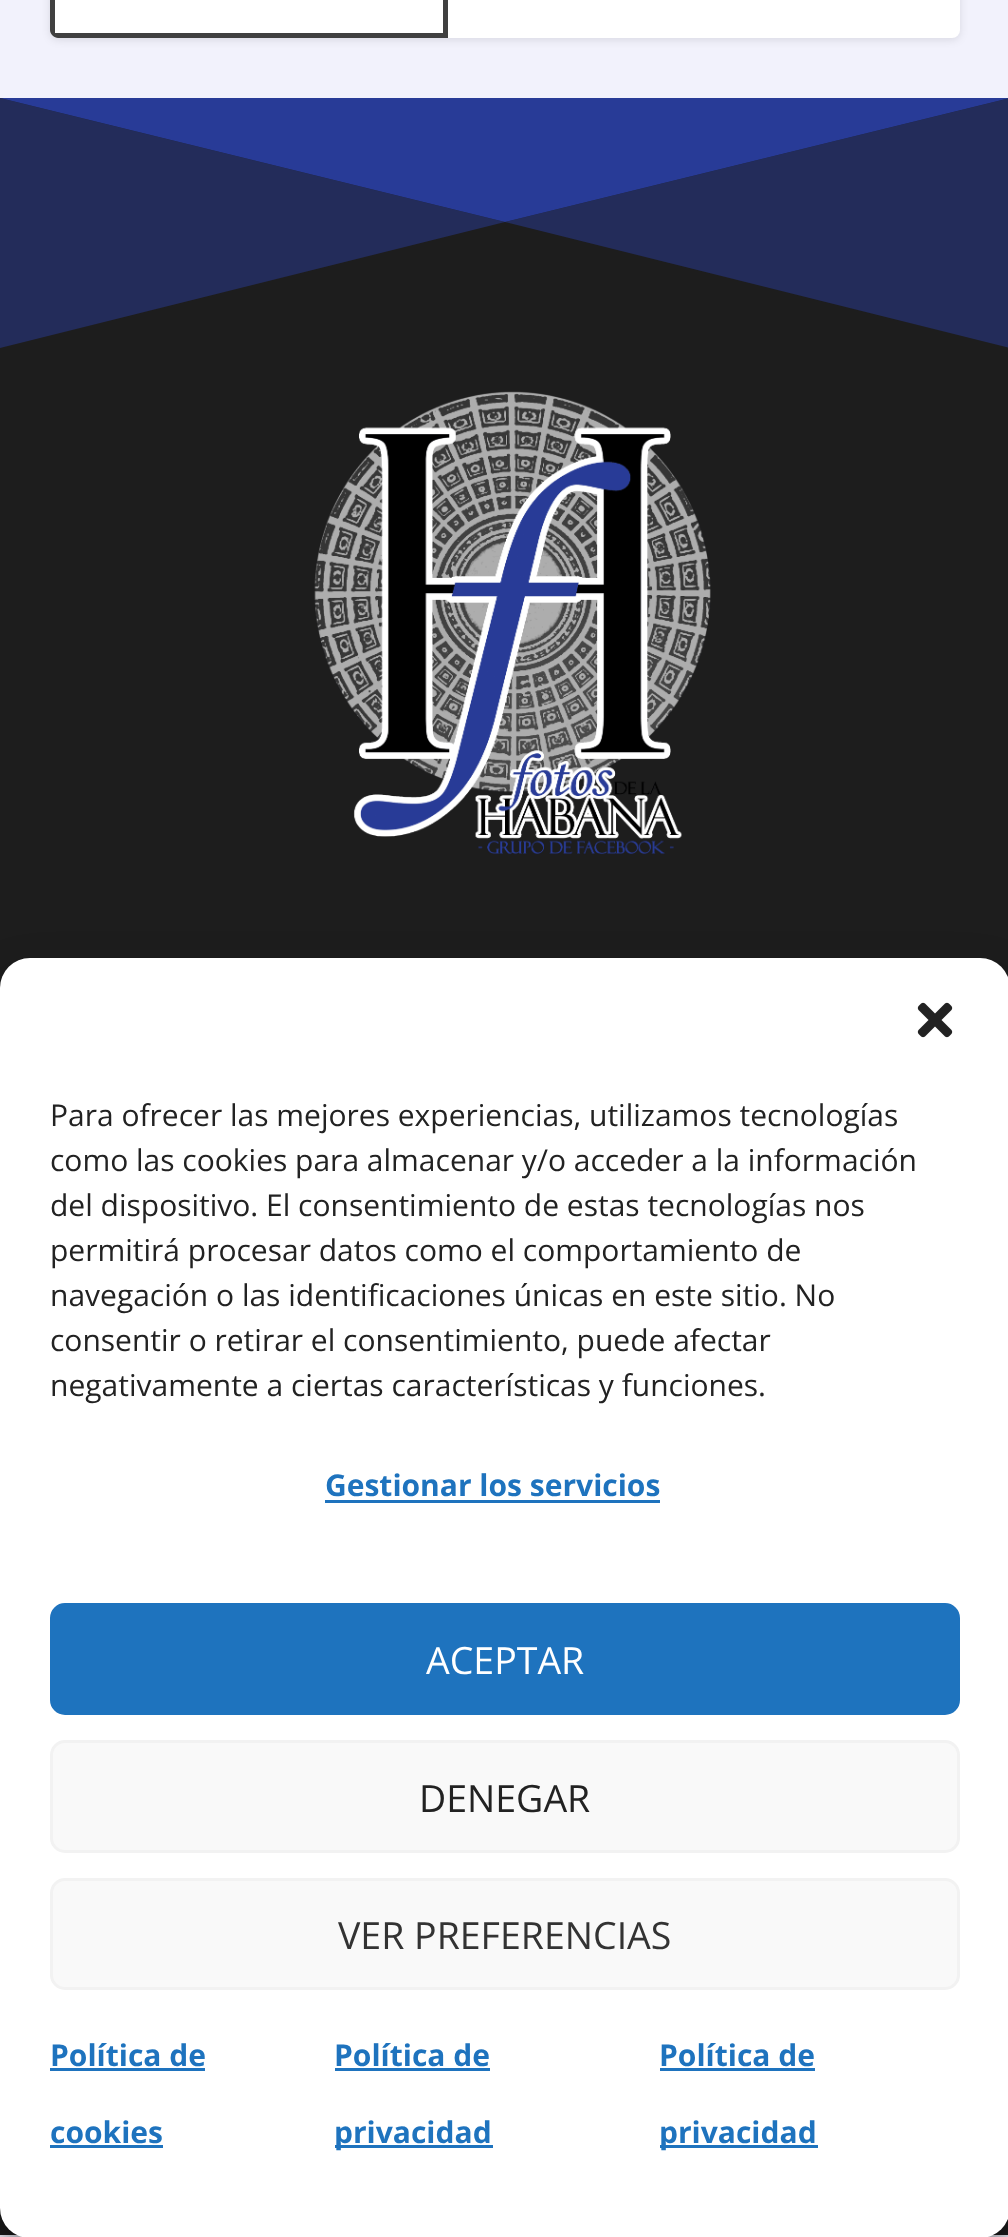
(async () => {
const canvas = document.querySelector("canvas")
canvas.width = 1008
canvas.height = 2237
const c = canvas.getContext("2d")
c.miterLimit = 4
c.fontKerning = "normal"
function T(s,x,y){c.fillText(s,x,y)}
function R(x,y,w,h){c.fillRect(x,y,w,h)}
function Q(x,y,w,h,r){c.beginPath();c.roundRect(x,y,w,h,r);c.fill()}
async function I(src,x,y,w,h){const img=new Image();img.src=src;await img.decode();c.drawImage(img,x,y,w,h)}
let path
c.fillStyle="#f2f2fc"
R(0,0,1008,2237)
c.fillStyle="#0000001a"
c.filter="blur(4px)"
c.beginPath()
c.roundRect(50,-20,910,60,8)
c.fill()
c.filter="none"
c.fillStyle="#fff"
Q(50,-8,910,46,8)
c.fillStyle="#000000bf"
path = new Path2D("M58-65c-4 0-8 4-8 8v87c0 4 4 8 8 8h390v-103zm-3 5v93h388v-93z")
c.fill(path,"evenodd")
c.fillStyle="#1d1d1d"
R(0,98,1008,2137)
c.fillStyle="#232c5a"
path = new Path2D("M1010 98l-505 124l-505-124v250l505-126l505 126z")
c.fill(path)
c.fillStyle="#283b97"
path = new Path2D("M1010 98h-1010l505 124z")
c.fill(path)
await I("1.png",314,391,397,464)
c.fillStyle="#0000003b"
c.filter="blur(7.5px)"
c.beginPath()
c.roundRect(0,973,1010,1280,30)
c.fill()
c.filter="none"
c.fillStyle="#00000030"
c.filter="blur(25px)"
c.beginPath()
c.roundRect(0,983,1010,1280,30)
c.fill()
c.filter="none"
c.fillStyle="#fff"
Q(0,958,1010,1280,30)
await I("2.png",917,1002,36,36)
c.font="30px Open Sans"
c.fillStyle="#222"
T("Para ofrecer las mejores experiencias, utilizamos tecnologías",50,1126)
T("como las cookies para almacenar y/o acceder a la información",50,1171)
T("del dispositivo. El consentimiento de estas tecnologías nos",50,1216)
T("permitirá procesar datos como el comportamiento de",50,1261)
T("navegación o las identificaciones únicas en este sitio. No",50,1306)
T("consentir o retirar el consentimiento, puede afectar",50,1351)
T("negativamente a ciertas características y funciones.",50,1396)
c.font="bold 30px Open Sans"
c.fillStyle="#1e73be"
T("Gestionar los servicios",325,1496)
R(325,1500,335,3)
c.beginPath()
c.roundRect(51.5,1604.5,907,109,13.5)
c.fill()
c.strokeStyle="#1e73be"
c.lineWidth=3
c.stroke()
c.font="37.5px Open Sans"
c.fillStyle="#fff"
T("ACEPTAR",426,1674)
c.fillStyle="#f9f9f9"
c.beginPath()
c.roundRect(51.5,1741.5,907,110,13.5)
c.fill()
c.strokeStyle="#f2f2f2"
c.stroke()
c.fillStyle="#222"
T("DENEGAR",419,1812)
c.fillStyle="#f9f9f9"
c.beginPath()
c.roundRect(51.5,1879.5,907,109,13.5)
c.fill()
c.stroke()
c.fillStyle="#333"
T("VER PREFERENCIAS",338,1949)
c.font="bold 30px Open Sans"
c.fillStyle="#1e73be"
T("Política de",50,2066)
R(50,2068,155,3)
T("cookies",50,2143)
R(50,2145,113,3)
T("Política de",334,2066)
R(335,2068,155,3)
R(335,2145,158,3)
T("privacidad",334,2143)
T("Política de",659,2066)
R(660,2068,155,3)
R(660,2145,158,3)
T("privacidad",659,2143)
})()
